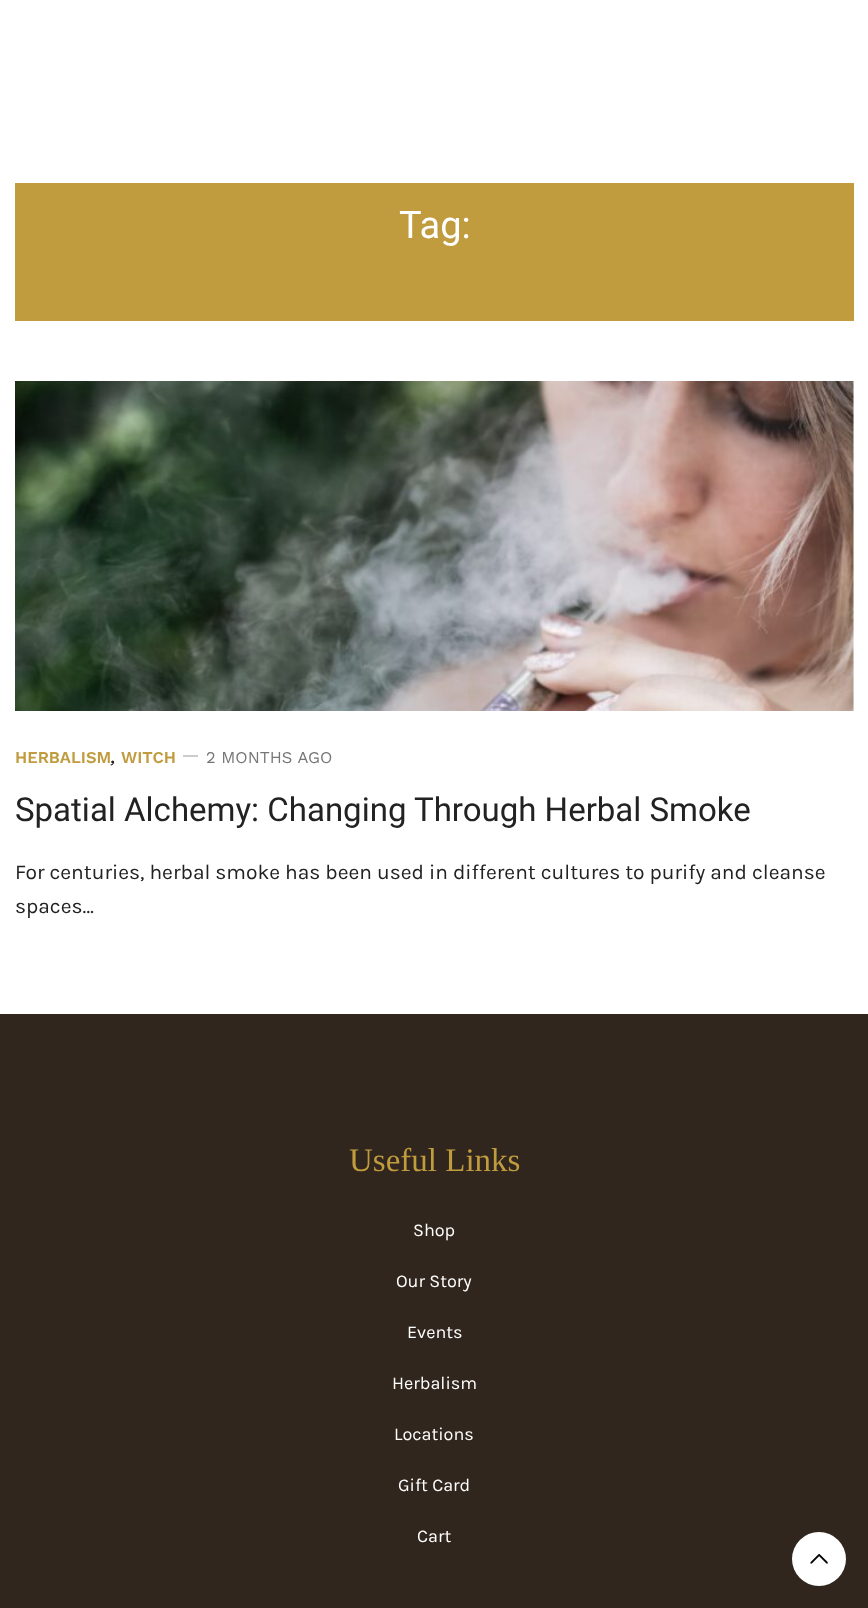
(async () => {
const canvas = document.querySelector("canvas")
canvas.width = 868
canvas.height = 1608
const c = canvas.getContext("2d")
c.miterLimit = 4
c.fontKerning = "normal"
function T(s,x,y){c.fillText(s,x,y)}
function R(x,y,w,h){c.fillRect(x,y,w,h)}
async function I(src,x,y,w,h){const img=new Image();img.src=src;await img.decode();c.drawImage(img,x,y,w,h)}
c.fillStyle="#fff"
R(0,0,868,1608)
c.fillStyle="#c09c3f"
R(15,183,839,138)
c.font="38px Roboto"
c.fillStyle="#fff"
T("Tag:",399,238)
await I("1.png",15,381,839,330)
c.font="600 16.5px Work Sans"
c.fillStyle="#c09c3f"
T("HERBALISM",15,763)
c.font="italic 600 16.5px Work Sans"
c.fillStyle="#222"
T(",",111,763)
c.font="600 16.5px Work Sans"
c.fillStyle="#c09c3f"
T("WITCH",121,763)
c.fillStyle="#ccc"
R(183,755,15,2)
c.font="16.5px Work Sans"
c.fillStyle="#767676"
T("2 MONTHS AGO",206,763)
c.font="33px Roboto"
c.fillStyle="#222"
T("Spatial Alchemy: Changing Through Herbal Smoke",15,821)
c.font="21px Karla"
T("For centuries, herbal smoke has been used in different cultures to purify and cleanse",15,879)
T("spaces…",15,913)
c.fillStyle="#30261d"
R(0,1014,868,594)
c.font="33px Liberation Serif"
c.fillStyle="#c09c3f"
T("Useful Links",349,1171)
c.font="18px Karla"
c.fillStyle="#fff"
T("Shop",413,1236)
T("Our Story",396,1287)
T("Events",407,1338)
T("Herbalism",392,1389)
T("Locations",394,1440)
T("Gift Card",398,1491)
T("Cart",417,1542)
c.beginPath()
c.arc(819,1559,27,0,7)
c.fill()
await I("2.png",810,1554,18,10)
})()
